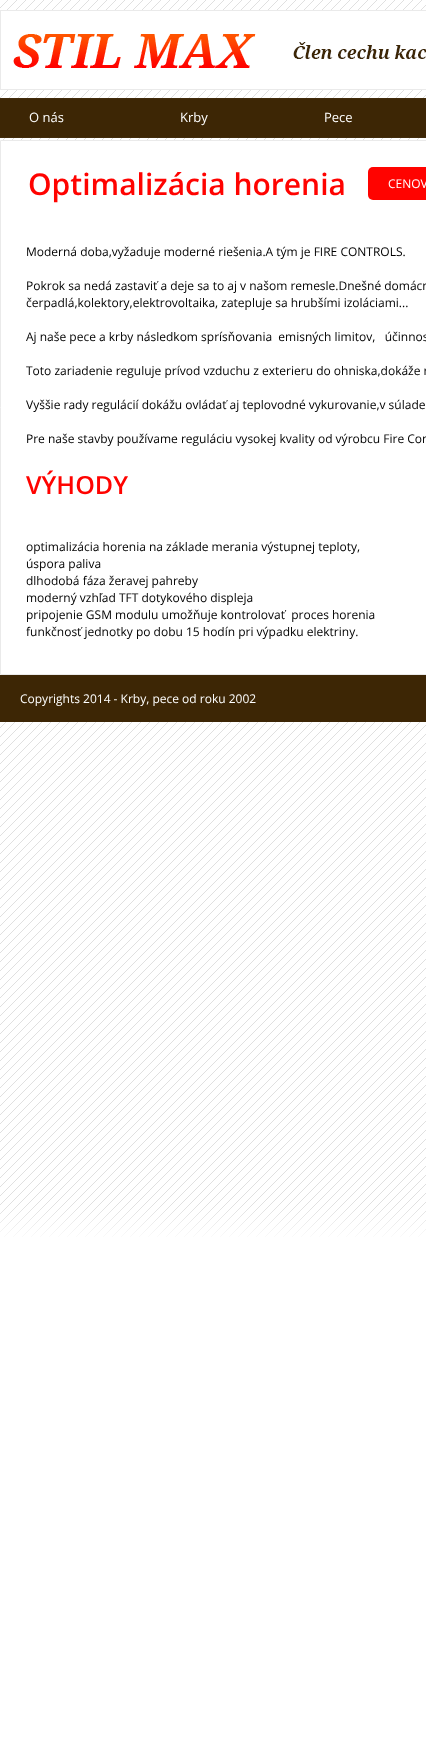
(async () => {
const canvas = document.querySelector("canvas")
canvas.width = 426
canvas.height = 1755
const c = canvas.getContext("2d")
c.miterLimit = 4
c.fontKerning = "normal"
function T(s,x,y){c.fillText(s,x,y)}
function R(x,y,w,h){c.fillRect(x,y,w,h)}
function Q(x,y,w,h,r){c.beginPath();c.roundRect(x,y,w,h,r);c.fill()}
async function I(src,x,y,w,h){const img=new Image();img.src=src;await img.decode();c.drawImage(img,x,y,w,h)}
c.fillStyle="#fff"
R(0,0,426,1755)
await I("1.png",0,0,426,1237)
R(1,11,425,78)
await I("2.png",293,42,133,17)
c.strokeStyle="#eaeaea"
c.strokeRect(.5,10.5,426,79)
await I("3.png",13,34,243,34)
c.font="13px Open Sans"
T("O nás",29,122)
T("Krby",180,122)
T("Pece",324,122)
c.beginPath()
c.rect(.5,140.5,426,534)
c.fill()
c.stroke()
c.font="600 30px Open Sans"
c.fillStyle="#ff0300"
T("Optimalizácia horenia",28,195)
Q(368,167,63,33,5)
c.font="12px Open Sans"
c.fillStyle="#fff"
T("CENOV",388,188)
c.fillStyle="#000"
T("Moderná doba,vyžaduje moderné riešenia.A tým je FIRE CONTROLS.",26,256)
T("Pokrok sa nedá zastaviť a deje sa to aj v našom remesle.Dnešné domácn",26,290)
T("čerpadlá,kolektory,elektrovoltaika, zatepluje sa hrubšími izoláciami...",26,307)
T("Aj naše pece a krby následkom sprísňovania  emisných limitov,   účinnos",26,341)
T("Toto zariadenie reguluje prívod vzduchu z exterieru do ohniska,dokáže r",26,375)
T("Vyššie rady regulácií dokážu ovládať aj teplovodné vykurovanie,v súlade",26,409)
T("Pre naše stavby používame reguláciu vysokej kvality od výrobcu Fire Con",26,443)
c.font="600 25px Open Sans"
c.fillStyle="#ff0300"
T("VÝHODY",26,494)
c.font="12px Open Sans"
c.fillStyle="#000"
T("optimalizácia horenia na základe merania výstupnej teploty,",26,551)
T("úspora paliva",26,568)
T("dlhodobá fáza žeravej pahreby",26,585)
T("moderný vzhľad TFT dotykového displeja",26,602)
T("pripojenie GSM modulu umožňuje kontrolovať  proces horenia",26,619)
T("funkčnosť jednotky po dobu 15 hodín pri výpadku elektriny.",26,636)
c.fillStyle="#3d2605"
R(0,675,426,47)
c.fillStyle="#fff"
T("Copyrights 2014 - Krby, pece od roku 2002",20,703)
})()
